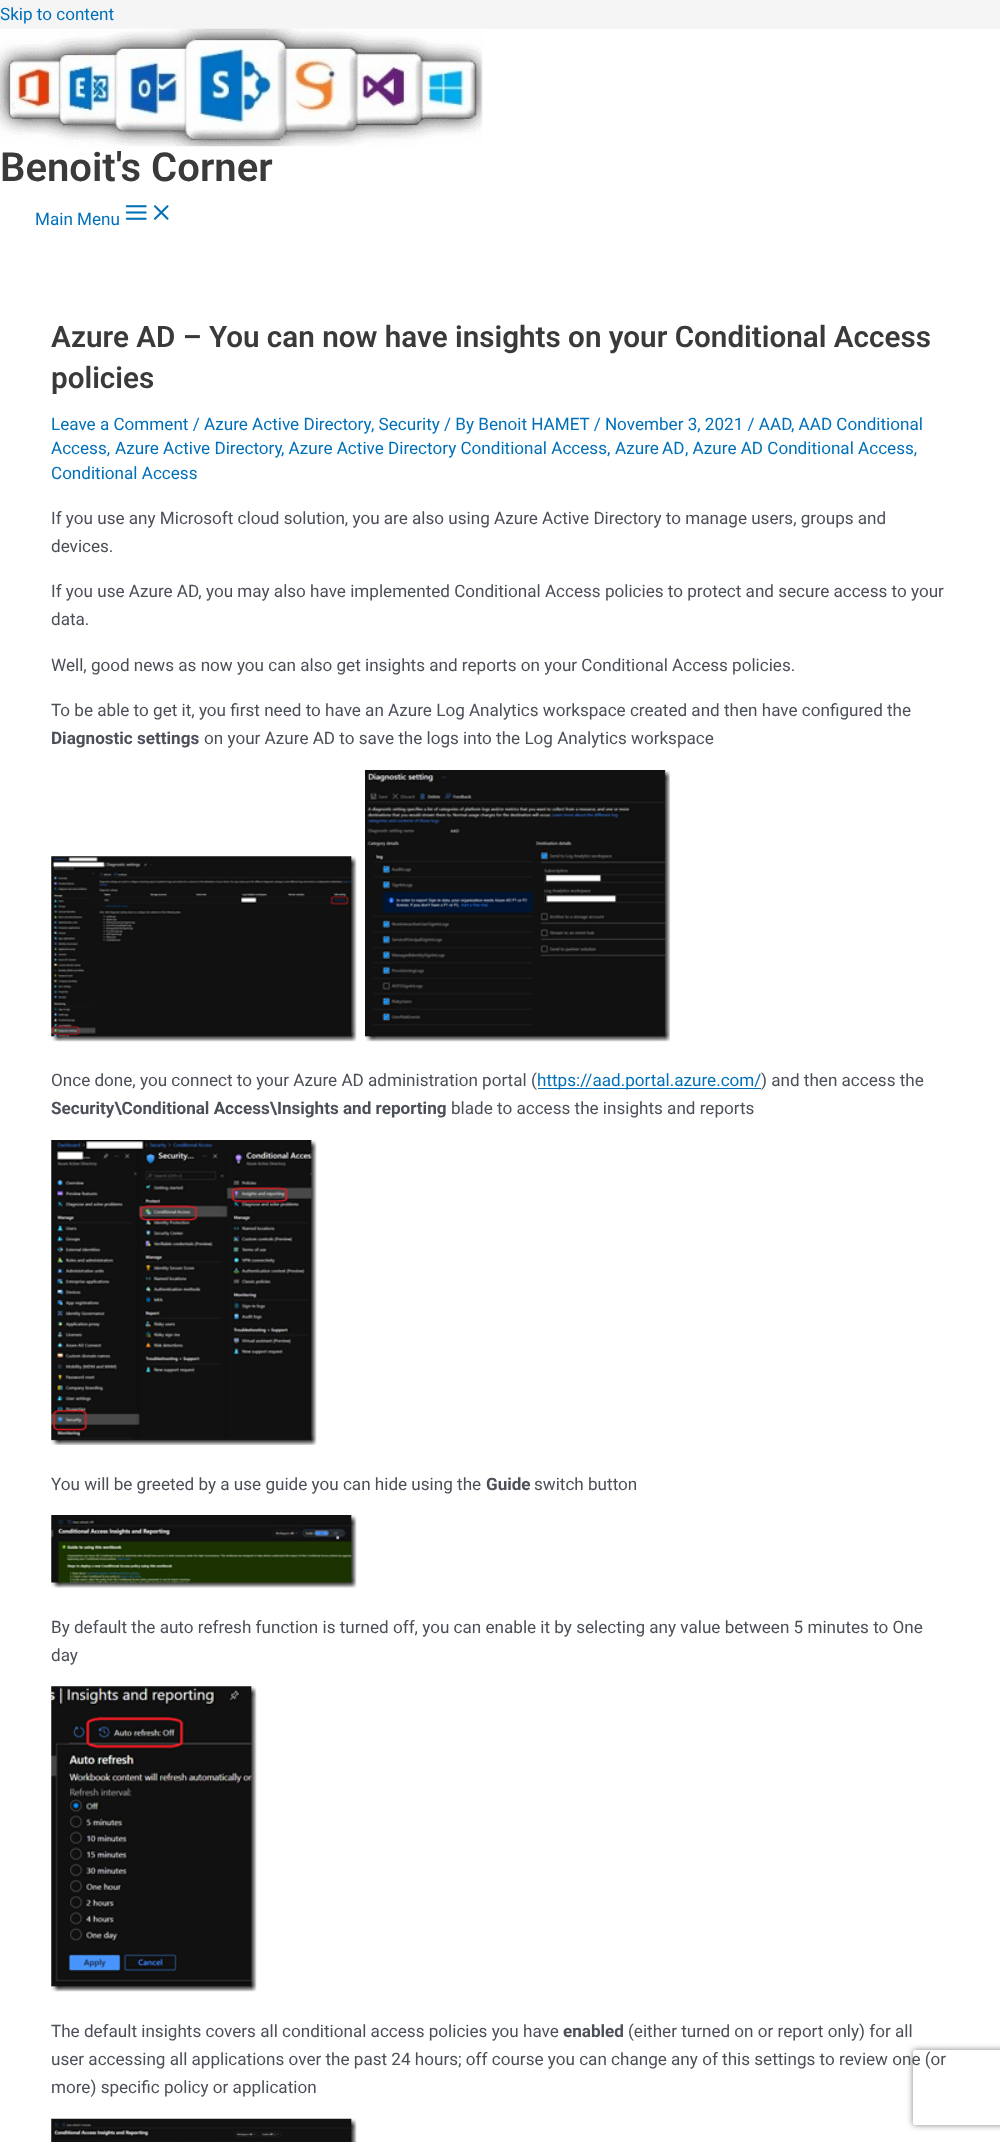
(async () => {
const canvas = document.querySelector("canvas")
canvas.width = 1000
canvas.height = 2142
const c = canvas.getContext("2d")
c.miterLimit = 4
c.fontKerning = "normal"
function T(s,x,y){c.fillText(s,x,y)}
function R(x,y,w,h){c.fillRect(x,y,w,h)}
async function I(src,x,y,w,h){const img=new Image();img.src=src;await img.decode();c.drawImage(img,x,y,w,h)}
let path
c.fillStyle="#f5f5f5"
R(0,0,1000,2142)
c.font="17.1px Roboto"
c.fillStyle="#0170b9"
T("Skip to content",0,20)
c.fillStyle="#fff"
R(0,29,1000,2113)
await I("1.png",0,28,483,119)
c.font="600 40px Roboto"
c.fillStyle="#3a3a3a"
T("Benoit's Corner",0,181)
c.font="17.1px Roboto"
c.fillStyle="#0170b9"
T("Main Menu",35,225)
await I("2.png",125,205,22,15)
await I("3.png",154,205,15,15)
c.font="600 29.65px Roboto"
c.fillStyle="#3a3a3a"
T("Azure AD – You can now have insights on your Conditional Access",51,347)
T("policies",51,388)
c.font="17.1px Roboto"
c.fillStyle="#0170b9"
T("Leave a Comment /",51,430)
T("Azure Active Directory",204,430)
T(", Security / By Benoit HAMET / November 3, 2021 / AAD",371,430)
T(", AAD Conditional",791,430)
T("Access,",51,454)
T("Azure Active Directory",115,454)
T(", Azure Active Directory Conditional Access,",281,454)
c.wordSpacing="-1px"
T("Azure AD",615,454)
c.wordSpacing="0px"
T(", Azure AD Conditional Access,",685,454)
T("Conditional Access",51,479)
c.fillStyle="#4b4f58"
T("If you use any Microsoft cloud solution, you are also using Azure Active Directory to manage users, groups and",51,524)
T("devices.",51,552)
T("If you use Azure AD, you may also have implemented Conditional Access policies to protect and secure access to your",51,597)
T("data.",51,625)
T("Well, good news as now you can also get insights and reports on your Conditional Access policies.",51,671)
T("To be able to get it, you first need to have an Azure Log Analytics workspace created and then have configured the",51,716)
c.font="bold 17.1px Roboto"
T("Diagnostic settings",51,744)
c.font="17.1px Roboto"
T("on your Azure AD to save the logs into the Log Analytics workspace",204,744)
await I("4.png",51,856,306,186)
await I("5.png",365,770,305,272)
T("Once done, you connect to your Azure AD administration portal (",51,1086)
c.fillStyle="#0170b9"
R(538,1088,223,1)
T("https://aad.portal.azure.com/",537,1086)
c.fillStyle="#4b4f58"
T(") and then access the",761,1086)
c.font="bold 17.1px Roboto"
T("Security\\Conditional Access\\Insights and reporting",51,1114)
c.font="17.1px Roboto"
T("blade to access the insights and reports",451,1114)
await I("6.png",51,1140,266,305)
T("You will be greeted by a use guide you can hide using the",51,1490)
c.font="bold 17.1px Roboto"
T("Guide",486,1490)
c.font="17.1px Roboto"
T("switch button",534,1490)
await I("7.png",51,1515,306,73)
T("By default the auto refresh function is turned off, you can enable it by selecting any value between 5 minutes to One",51,1633)
T("day",51,1661)
await I("8.png",51,1686,206,306)
T("The default insights covers all conditional access policies you have",51,2037)
c.font="bold 17.1px Roboto"
T("enabled",563,2037)
c.font="17.1px Roboto"
T("(either turned on or report only) for all",628,2037)
T("user accessing all applications over the past 24 hours; off course you can change any of this settings to review one (or",51,2065)
T("more) specific policy or application",51,2093)
await I("9.png",51,2118,306,24)
c.save()
path = new Path2D("M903 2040h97v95h-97zm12.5 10h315c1.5 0 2.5 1 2.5 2.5v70c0 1.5-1 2.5-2.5 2.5h-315c-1.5 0-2.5-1-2.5-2.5v-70c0-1.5 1-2.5 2.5-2.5z")
c.clip(path,"evenodd")
c.fillStyle="#808080"
c.filter="blur(3px)"
c.beginPath()
c.roundRect(913,2050,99,75,2.5)
c.fill()
c.filter="none"
c.restore()
})()
